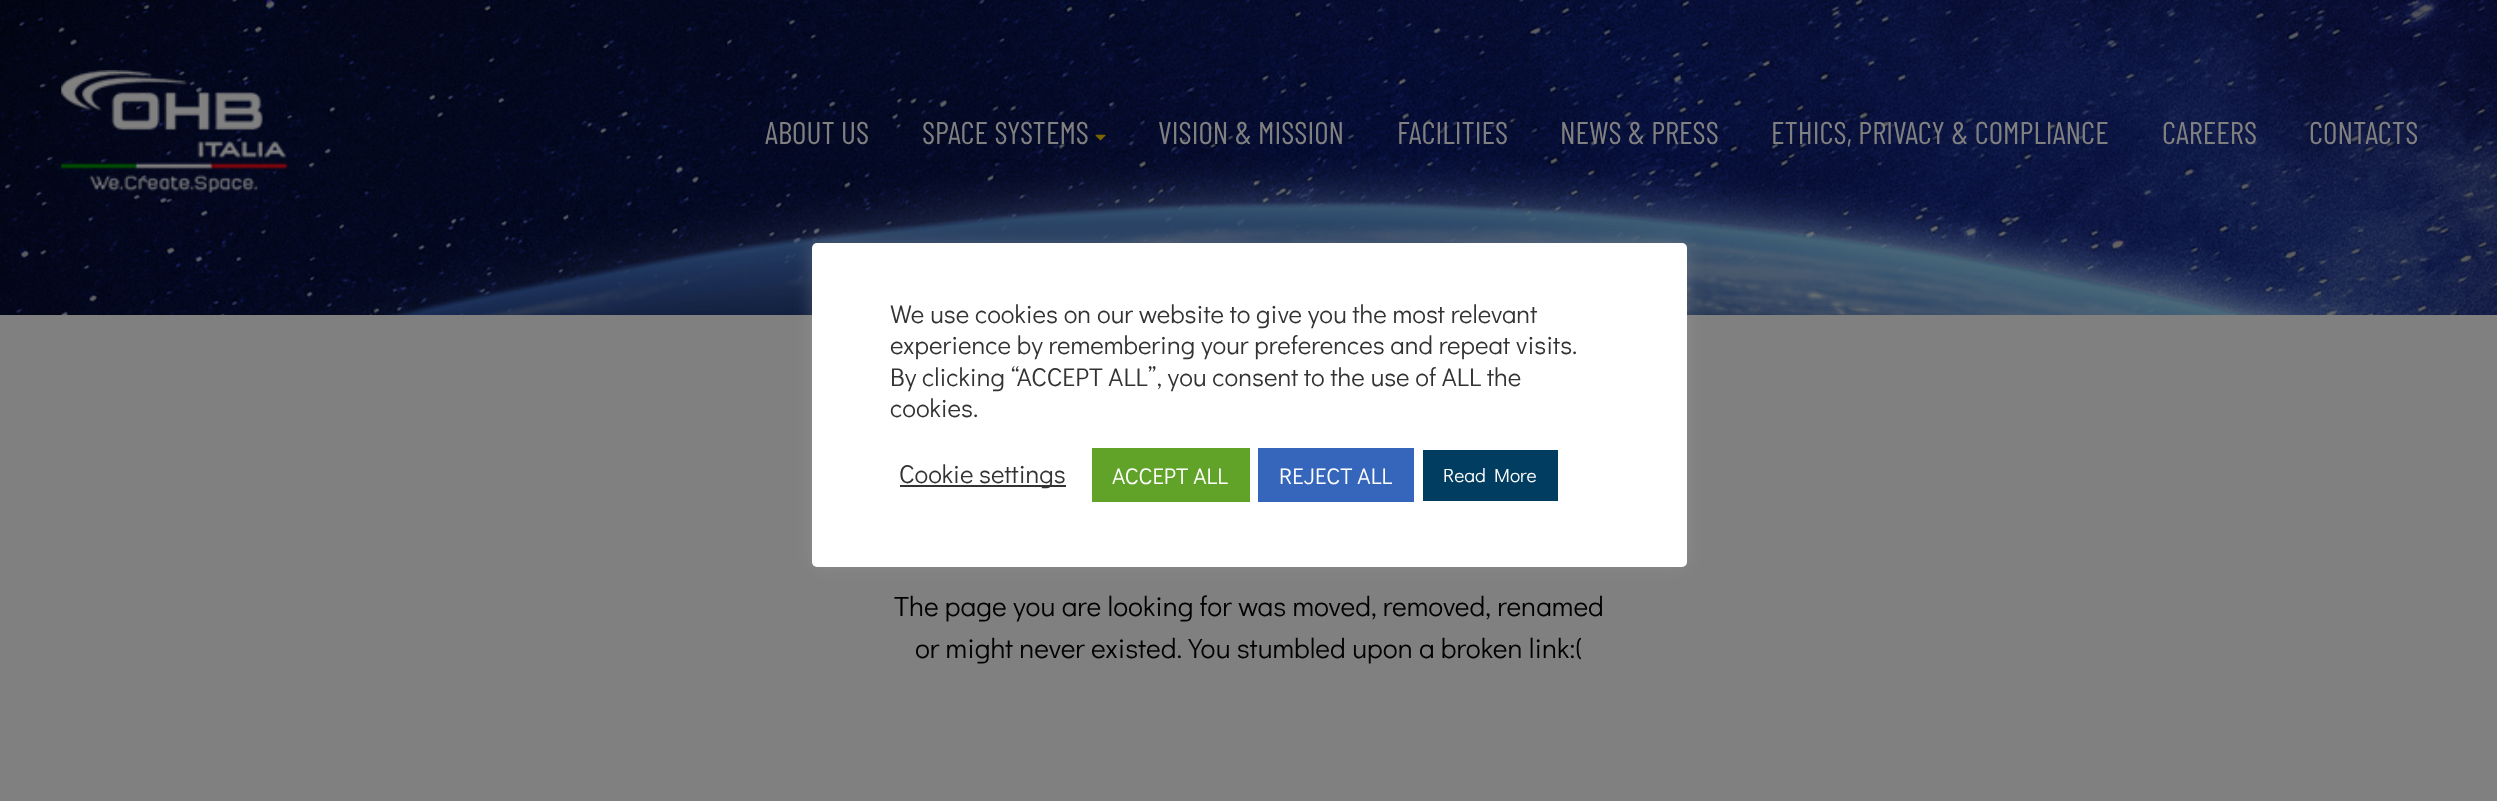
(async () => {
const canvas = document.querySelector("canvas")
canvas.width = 2497
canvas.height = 801
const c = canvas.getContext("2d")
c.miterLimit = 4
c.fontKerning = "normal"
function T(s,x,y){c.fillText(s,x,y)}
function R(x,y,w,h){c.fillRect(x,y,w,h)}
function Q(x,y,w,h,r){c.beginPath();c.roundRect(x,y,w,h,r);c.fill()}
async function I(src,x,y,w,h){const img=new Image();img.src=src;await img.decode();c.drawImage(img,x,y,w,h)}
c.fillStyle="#808080"
R(0,0,2497,801)
await I("1.png",0,0,2497,315)
await I("2.png",61,70,227,123)
c.font="31.5px Barlow Condensed"
T("ABOUT US",765,144)
T("SPACE SYSTEMS",922,144)
await I("3.png",1095,134,11,7)
T("VISION & MISSION",1158,144)
T("FACILITIES",1397,144)
T("NEWS & PRESS",1560,144)
T("ETHICS, PRIVACY & COMPLIANCE",1771,144)
T("CAREERS",2162,144)
T("CONTACTS",2309,144)
c.font="28px Didact Gothic"
c.fillStyle="#000"
T("The page you are looking for was moved, removed, renamed",894,616)
T("or might never existed. You stumbled upon a broken link:(",915,658)
c.fillStyle="#acabab4d"
c.filter="blur(9px)"
c.beginPath()
c.roundRect(812,242,875,323,5)
c.fill()
c.filter="none"
c.fillStyle="#fff"
Q(812,243,875,324,5)
c.font="25.7px Didact Gothic"
c.fillStyle="#333"
T("We use cookies on our website to give you the most relevant",890,323)
T("experience by remembering your preferences and repeat visits.",890,354)
T("By clicking “ACCEPT ALL”, you consent to the use of ALL the",890,386)
T("cookies.",890,417)
R(900,485,166,2)
T("Cookie settings",899,483)
c.fillStyle="#61a229"
R(1092,448,158,54)
c.font="22.75px Didact Gothic"
c.fillStyle="#fff"
T("ACCEPT ALL",1112,484)
c.fillStyle="#3566bb"
R(1258,448,156,54)
c.fillStyle="#fff"
T("REJECT ALL",1279,484)
c.fillStyle="#003d61"
R(1423,450,135,51)
c.font="19.25px Didact Gothic"
c.fillStyle="#fff"
T("Read More",1443,482)
})()
